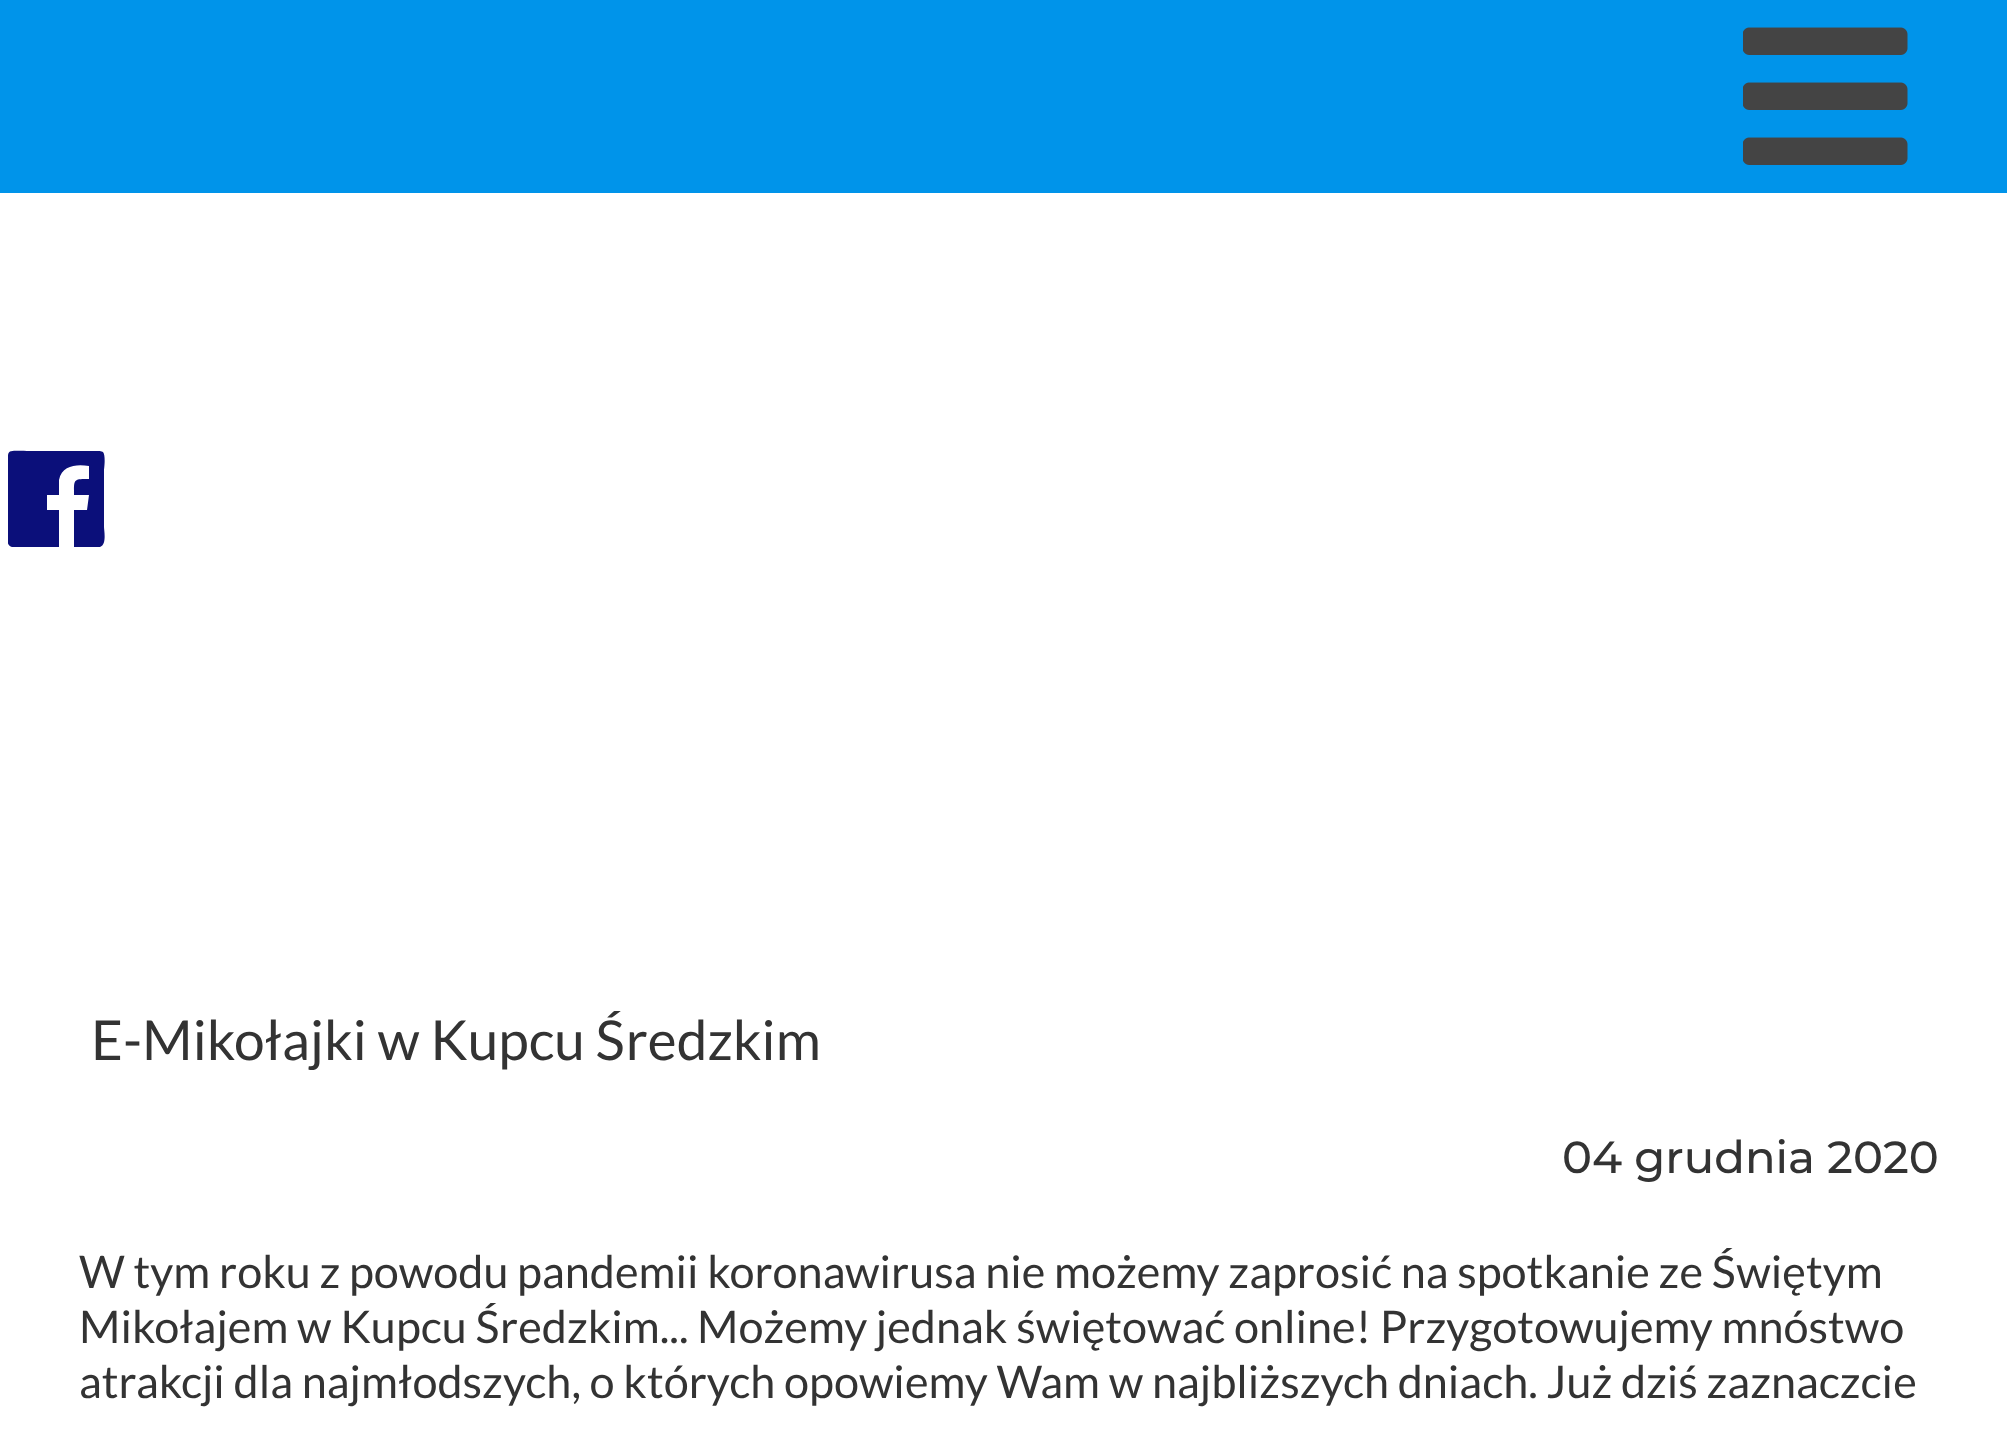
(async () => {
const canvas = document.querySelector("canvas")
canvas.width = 2007
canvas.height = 1439
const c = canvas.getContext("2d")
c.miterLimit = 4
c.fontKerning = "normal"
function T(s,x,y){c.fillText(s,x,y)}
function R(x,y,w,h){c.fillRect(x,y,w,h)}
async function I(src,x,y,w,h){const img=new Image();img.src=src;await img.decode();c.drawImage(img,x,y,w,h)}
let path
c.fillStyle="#fff"
R(0,0,2007,1439)
c.fillStyle="#0094ea"
R(0,0,2007,193)
await I("1.png",1743,27,165,138)
c.save()
c.beginPath()
c.rect(8,443,97,112)
c.clip()
c.fillStyle="#0b0f7a"
path = new Path2D("M99 451c1 0 2 0 4 1c3 4 1 17 1 18v57c0 3 3 18-4 20h-26v-37h13l2-15h-15c0-16-1-16 15-16v-13c-12-2-27-1-30 14v15h-12v15h12v37h-47c-8-2-4-17-4-20v-57c0-22-3-19 19-19z")
c.fill(path)
c.restore()
c.font="55px Lato"
c.fillStyle="#333"
T("E-Mikołajki w Kupcu Średzkim",91,1060)
c.font="500 45px Montserrat"
T("04 grudnia 2020",1562,1173)
c.font="45px Lato"
T("W tym roku z powodu pandemii koronawirusa nie możemy zaprosić na spotkanie ze Świętym",79,1288)
T("Mikołajem w Kupcu Średzkim... Możemy jednak świętować online! Przygotowujemy mnóstwo",79,1343)
T("atrakcji dla najmłodszych, o których opowiemy Wam w najbliższych dniach. Już dziś zaznaczcie",79,1398)
})()
